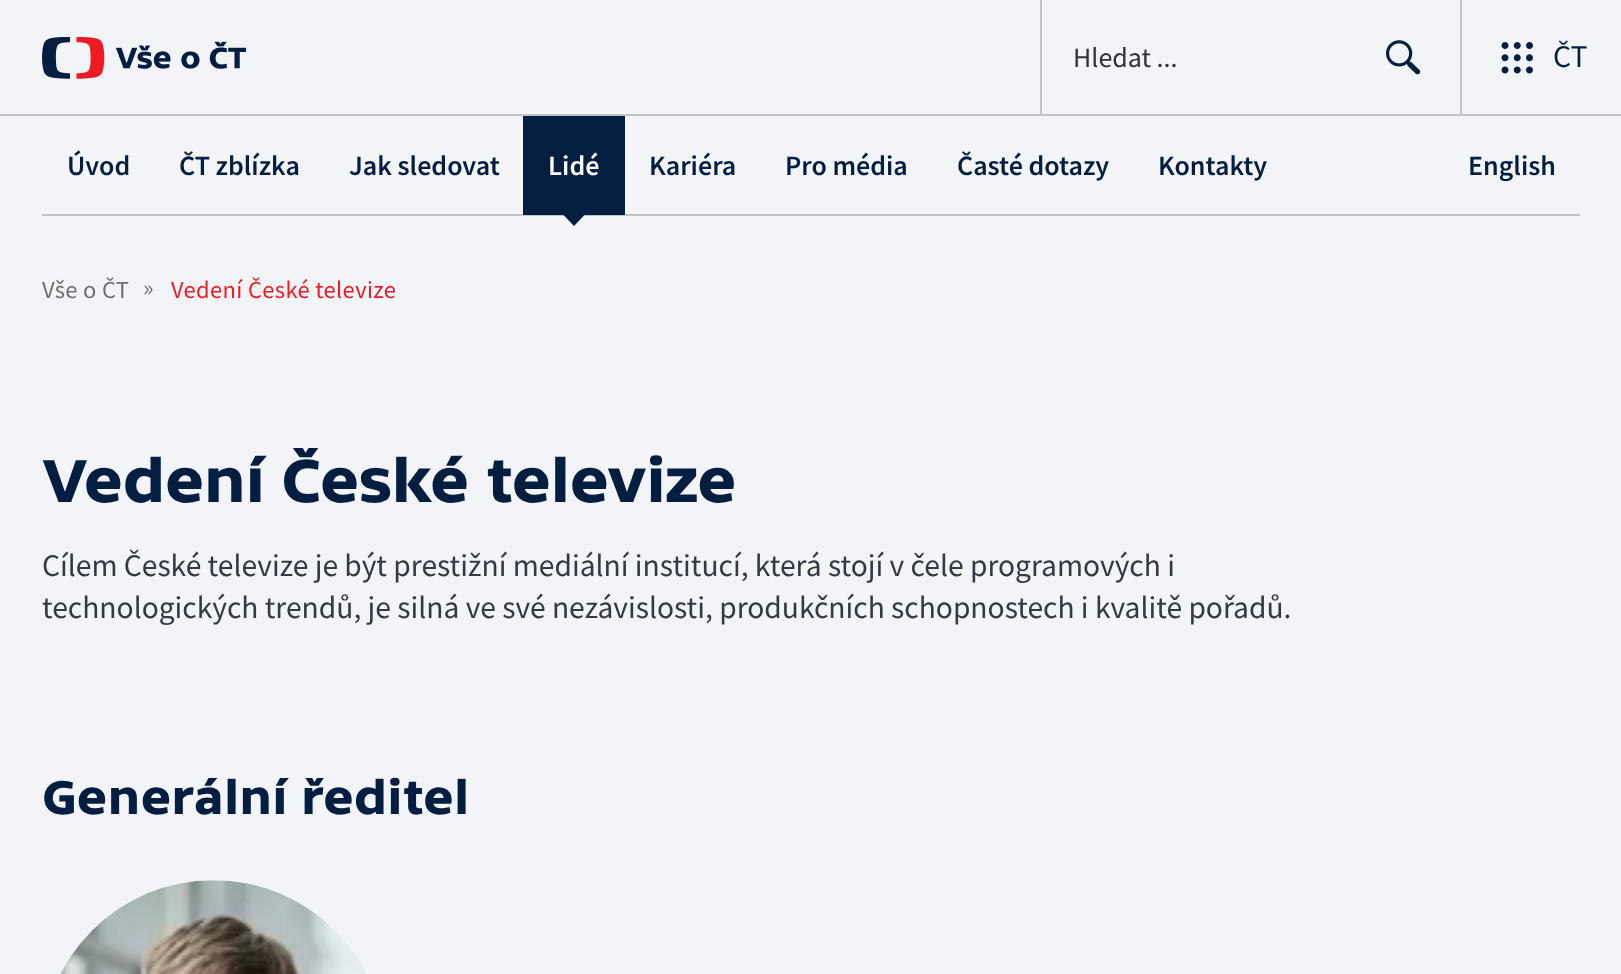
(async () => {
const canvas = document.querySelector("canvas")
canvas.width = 1621
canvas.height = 974
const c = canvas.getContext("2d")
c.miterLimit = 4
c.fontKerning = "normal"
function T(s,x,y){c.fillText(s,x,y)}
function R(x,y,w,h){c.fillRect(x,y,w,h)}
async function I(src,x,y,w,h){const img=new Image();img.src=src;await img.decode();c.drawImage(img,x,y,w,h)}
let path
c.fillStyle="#f2f4f8"
R(0,0,1621,974)
c.fillStyle="#c2c3c6"
R(0,114,1621,2)
await I("1.png",42,37,205,42)
R(1040,0,2,114)
c.font="28px Source Sans Pro"
c.fillStyle="#303132"
T("Hledat ...",1073,67)
await I("2.png",1386,40,35,35)
c.fillStyle="#c2c3c6"
R(1460,0,2,114)
await I("3.png",1501,42,32,32)
c.font="31.5px Source Sans Pro"
c.fillStyle="#041e42"
T("ČT",1553,67)
c.fillStyle="#c2c3c6"
R(42,214,1538,2)
c.font="600 28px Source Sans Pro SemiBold"
c.fillStyle="#041e42"
T("Úvod",67,175)
T("ČT zblízka",179,175)
T("Jak sledovat",349,175)
R(523,116,102,99)
c.fillStyle="#fff"
T("Lidé",548,175)
c.fillStyle="#041e42"
path = new Path2D("M563.5 215h21l-10.5 11z")
c.fill(path)
T("Kariéra",649,175)
T("Pro média",785,175)
T("Časté dotazy",957,175)
T("Kontakty",1158,175)
T("English",1468,175)
c.letterSpacing="0.35px"
c.font="24.5px Source Sans Pro"
c.fillStyle="#6f6f6f"
T("Vše o ČT",42,298)
T("»",143,296)
c.fillStyle="#ed1c24"
T("Vedení České televize",171,298)
c.letterSpacing="-0.7px"
c.font="bold 63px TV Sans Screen"
c.fillStyle="#041e42"
T("Vedení České televize",42,502)
c.letterSpacing="0px"
c.font="31.5px Source Sans Pro"
c.fillStyle="#343943"
T("Cílem České televize je být prestižní mediální institucí, která stojí v čele programových i",42,576)
T("technologických trendů, je silná ve své nezávislosti, produkčních schopnostech i kvalitě pořadů.",42,618)
c.font="bold 49px TV Sans Screen"
c.fillStyle="#041e42"
T("Generální ředitel",42,814)
await I("4.png",60,880,306,94)
})()
